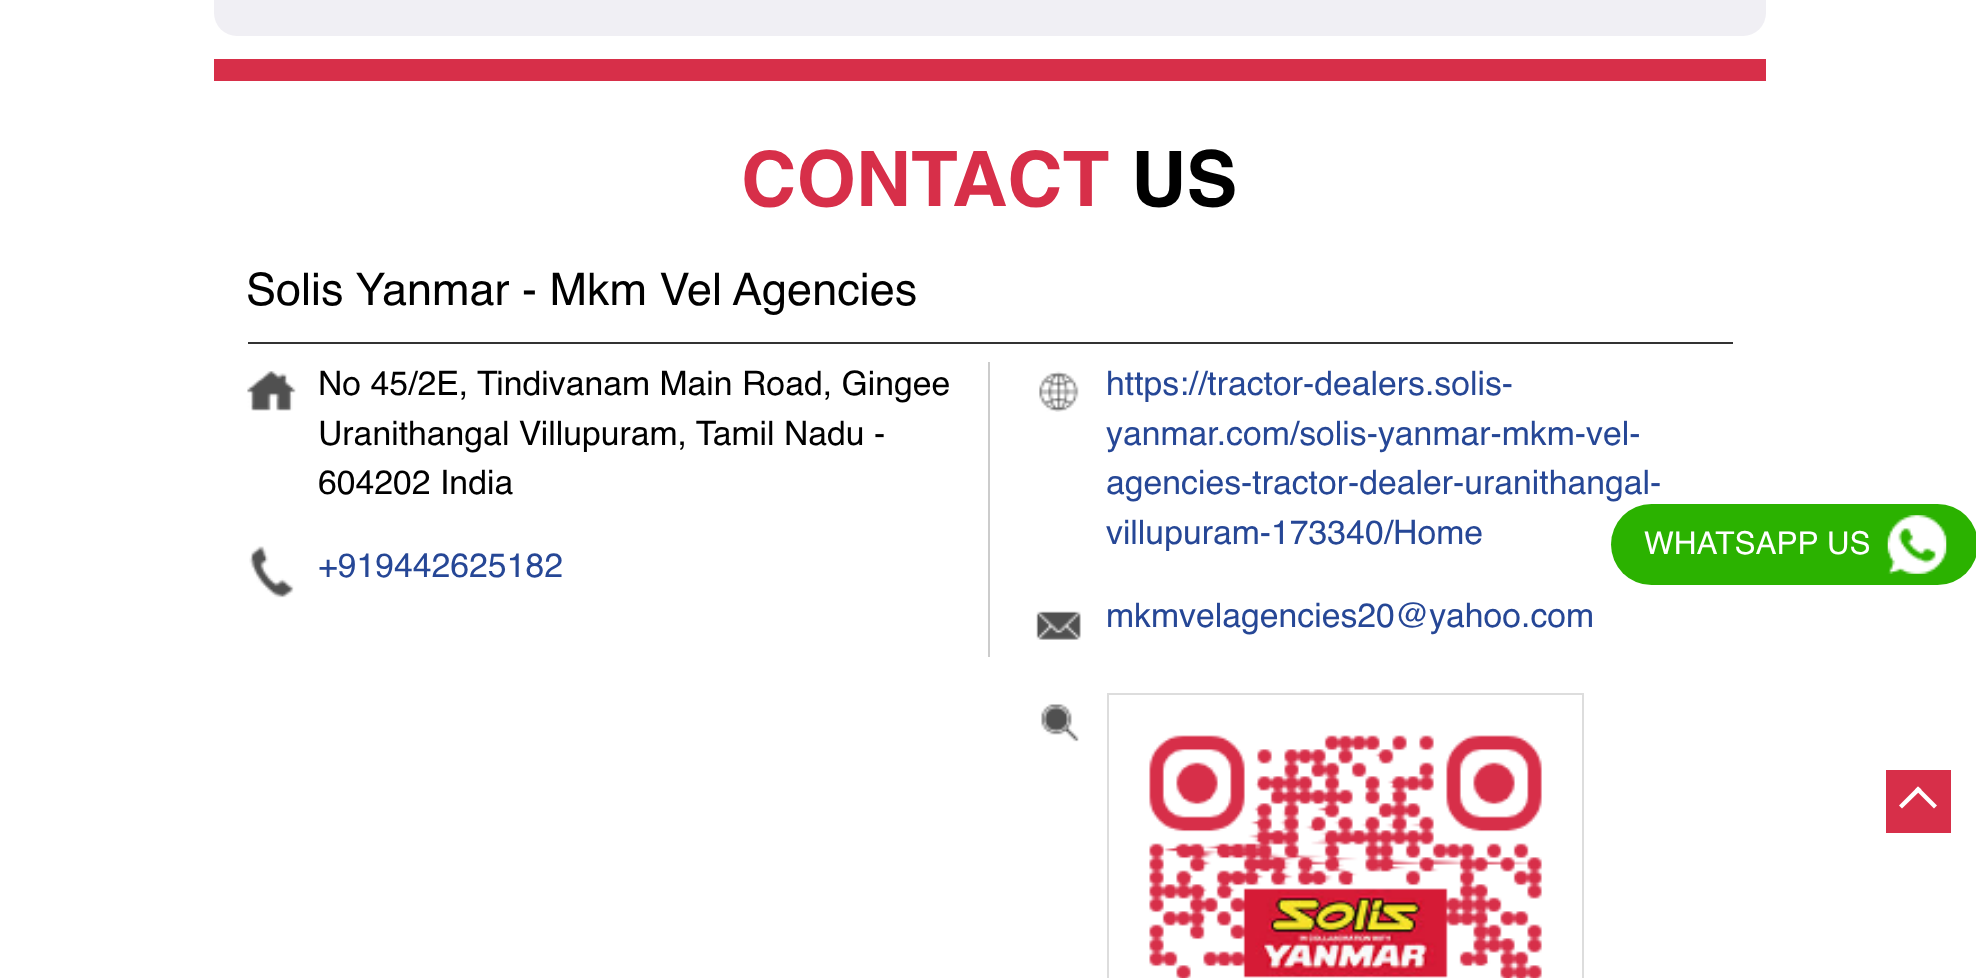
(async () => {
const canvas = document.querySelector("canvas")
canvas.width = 1976
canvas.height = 978
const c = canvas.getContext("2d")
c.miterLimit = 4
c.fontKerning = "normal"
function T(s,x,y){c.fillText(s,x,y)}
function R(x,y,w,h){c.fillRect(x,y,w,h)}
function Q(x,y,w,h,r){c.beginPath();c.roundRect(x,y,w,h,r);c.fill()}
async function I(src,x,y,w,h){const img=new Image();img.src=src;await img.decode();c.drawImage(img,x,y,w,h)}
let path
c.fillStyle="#fff"
R(0,0,1976,978)
c.fillStyle="#f0eff4"
Q(214,-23,1552,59,23)
c.fillStyle="#d72f49"
R(214,59,1552,22)
c.font="bold 76.5px Helvetica"
T("CONTACT",741,206)
c.fillStyle="#000"
T("US",1131,206)
c.fillStyle="#333"
R(248,342,1485,2)
c.font="45px Helvetica"
c.fillStyle="#000"
T("Solis Yanmar - Mkm Vel Agencies",246,305)
c.fillStyle="#ccc"
R(988,362,2,295)
await I("1.png",247,371,49,40)
c.font="33.75px Helvetica"
c.fillStyle="#000"
T("No 45/2E, Tindivanam Main Road, Gingee",318,395)
T("Uranithangal Villupuram, Tamil Nadu -",318,445)
T("604202 India",318,494)
await I("2.png",249,546,45,52)
c.fillStyle="#264796"
T("+919442625182",318,577)
await I("3.png",1039,371,40,41)
T("https://tractor-dealers.solis-",1106,395)
T("yanmar.com/solis-yanmar-mkm-vel-",1106,445)
T("agencies-tractor-dealer-uranithangal-",1106,494)
T("villupuram-173340/Home",1106,544)
await I("4.png",1036,611,45,29)
T("mkmvelagencies20@yahoo.com",1106,627)
await I("5.png",1041,704,38,38)
c.strokeStyle="#ddd"
c.lineWidth=2
c.strokeRect(1108,694,475,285)
await I("6.png",1149,735,393,243)
c.fillStyle="#2bb200"
Q(1611,504,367,81,40.5)
c.font="31.5px Helvetica"
c.fillStyle="#fff"
T("WHATSAPP US",1644,554)
await I("7.png",1887,515,60,59)
c.fillStyle="#d72f49"
R(1886,770,65,63)
c.fillStyle="#fff"
path = new Path2D("M1902 808.5l-3-3l19-19l3.5 3z")
c.fill(path)
path = new Path2D("M1934 808.5l-19-19l3-3l19 19z")
c.fill(path)
})()
